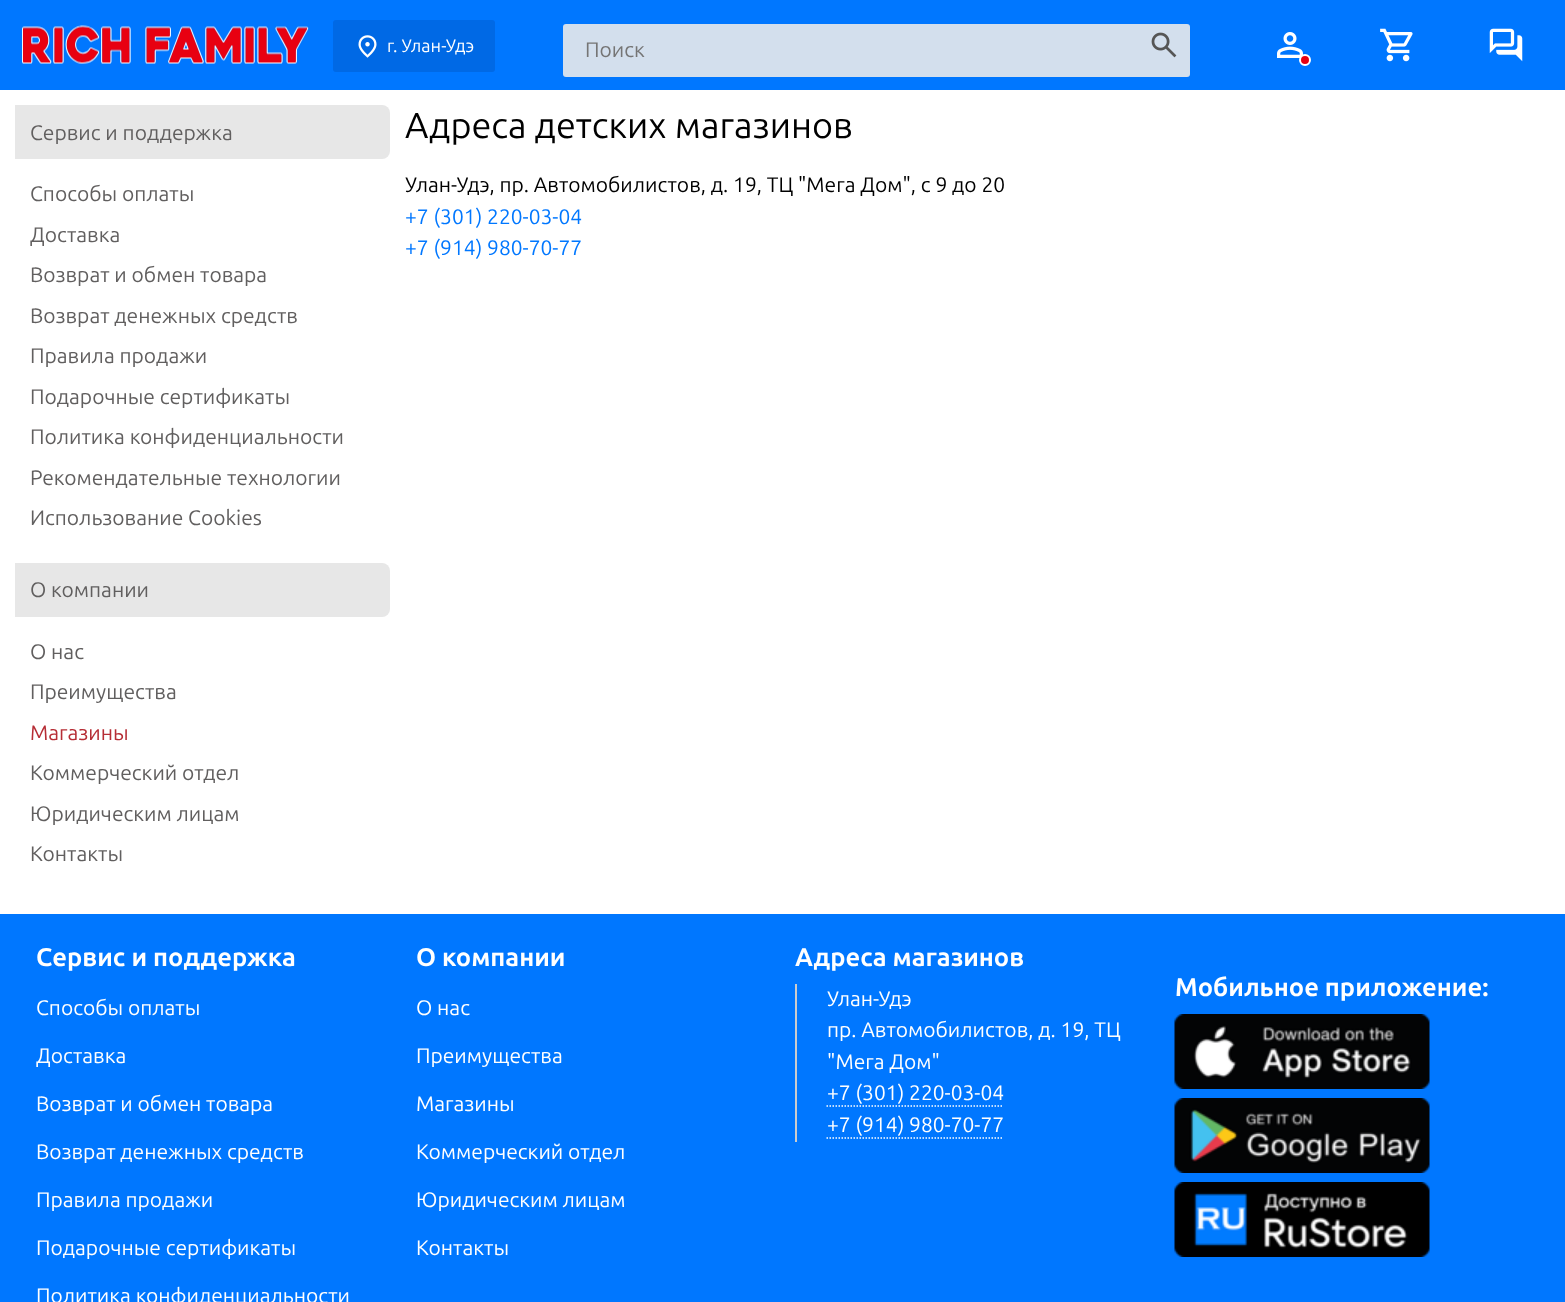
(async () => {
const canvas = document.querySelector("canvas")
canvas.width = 1565
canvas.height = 1302
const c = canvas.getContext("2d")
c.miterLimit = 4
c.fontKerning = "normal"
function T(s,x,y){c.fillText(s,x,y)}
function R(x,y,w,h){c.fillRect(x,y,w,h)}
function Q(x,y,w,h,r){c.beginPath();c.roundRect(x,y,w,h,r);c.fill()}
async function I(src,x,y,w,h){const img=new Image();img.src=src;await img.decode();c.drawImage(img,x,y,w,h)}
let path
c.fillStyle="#fff"
R(0,0,1565,1302)
c.fillStyle="#07f"
R(0,0,1565,90)
await I("1.png",22,25,287,39)
c.fillStyle="#0069e5"
Q(333,20,162,52,3)
await I("2.png",358,35,19,23)
c.font="18px Ubuntu"
c.fillStyle="#fff"
T("г. Улан-Удэ",387,52)
c.fillStyle="#d3dfed"
Q(563,24,627,53,3)
c.font="21px Ubuntu"
c.fillStyle="#757575"
T("Поиск",585,57)
await I("3.png",1151,32,26,26)
await I("4.png",1277,32,26,26)
c.fillStyle="#e80011"
c.beginPath()
c.arc(1305,60,5,0,7)
c.fill()
c.strokeStyle="#fff"
c.lineWidth=2
c.stroke()
await I("5.png",1380,28,33,34)
await I("6.png",1489,28,34,34)
c.fillStyle="#e7e7e7"
c.beginPath()
c.roundRect(15,105,375,54,[0,8,8,0])
c.fill()
c.fillStyle="#615f5f"
T("Сервис и поддержка",30,140)
T("Способы оплаты",30,201)
T("Доставка",30,242)
T("Возврат и обмен товара",30,282)
T("Возврат денежных средств",30,323)
T("Правила продажи",30,363)
T("Подарочные сертификаты",30,404)
T("Политика конфиденциальности",30,444)
T("Рекомендательные технологии",30,485)
T("Использование Cookies",30,525)
c.fillStyle="#e7e7e7"
c.beginPath()
c.roundRect(15,563,375,54,[0,8,8,0])
c.fill()
c.fillStyle="#615f5f"
T("О компании",30,597)
T("О нас",30,659)
T("Преимущества",30,699)
c.fillStyle="#b62d35"
T("Магазины",30,740)
c.fillStyle="#615f5f"
T("Коммерческий отдел",30,780)
T("Юридическим лицам",30,821)
T("Контакты",30,861)
c.font="36px Ubuntu"
c.fillStyle="#000"
T("Адреса детских магазинов",405,138)
c.font="21px Ubuntu"
T("Улан-Удэ, пр. Автомобилистов, д. 19, ТЦ \"Мега Дом\", с 9 до 20",405,192)
c.fillStyle="#07f"
T("+7 (301) 220-03-04",405,224)
T("+7 (914) 980-70-77",405,255)
R(0,914,1565,388)
c.font="bold 25.5px Ubuntu"
c.fillStyle="#fff"
T("Сервис и поддержка",36,966)
c.font="21px Ubuntu"
T("Способы оплаты",36,1015)
T("Доставка",36,1063)
T("Возврат и обмен товара",36,1111)
T("Возврат денежных средств",36,1159)
T("Правила продажи",36,1207)
T("Подарочные сертификаты",36,1255)
T("Политика конфиденциальности",36,1303)
c.font="bold 25.5px Ubuntu"
T("О компании",416,966)
c.font="21px Ubuntu"
T("О нас",416,1015)
T("Преимущества",416,1063)
T("Магазины",416,1111)
T("Коммерческий отдел",416,1159)
T("Юридическим лицам",416,1207)
T("Контакты",416,1255)
c.font="bold 25.5px Ubuntu"
T("Адреса магазинов",795,966)
c.fillStyle="#ccc"
R(795,984,2,158)
c.font="21px Ubuntu"
c.fillStyle="#fff"
T("Улан-Удэ",827,1006)
T("пр. Автомобилистов, д. 19, ТЦ",827,1037)
T("\"Мега Дом\"",827,1069)
T("+7 (301) 220-03-04",827,1100)
path = new Path2D("M826.5 1106h177")
c.lineWidth=1.5
c.setLineDash([1.5,1.5])
c.stroke(path)
T("+7 (914) 980-70-77",827,1132)
path = new Path2D("M826.5 1138h177")
c.stroke(path)
c.font="bold 25.5px Ubuntu"
T("Мобильное приложение:",1175,996)
await I("7.png",1174,1014,256,75)
await I("8.png",1174,1098,256,75)
await I("9.png",1174,1182,256,75)
})()
